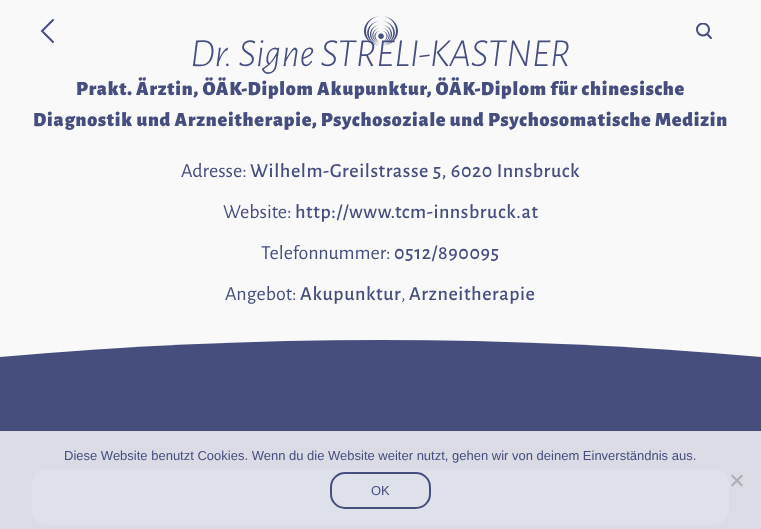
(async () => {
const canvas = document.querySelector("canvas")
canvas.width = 761
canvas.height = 529
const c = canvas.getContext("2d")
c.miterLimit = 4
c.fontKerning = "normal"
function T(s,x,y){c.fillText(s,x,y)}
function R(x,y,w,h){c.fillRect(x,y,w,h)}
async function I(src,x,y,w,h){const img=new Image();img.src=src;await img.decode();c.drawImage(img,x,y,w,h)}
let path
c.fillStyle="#f9f9f9"
R(0,0,761,529)
path = new Path2D("M53 42l-11-11l11-11")
c.strokeStyle="#464e7e"
c.lineWidth=2
c.lineCap="round"
c.stroke(path)
c.font="italic 300 40px Alegreya Sans"
c.fillStyle="#464e7e"
T("Dr. Signe STRELI-KASTNER",190,66)
await I("1.png",364,16,34,30)
c.save()
c.beginPath()
c.rect(696,23,17,17)
c.clip()
c.beginPath()
c.arc(703,29.5,6,0,7)
c.stroke()
c.restore()
path = new Path2D("M707.5 34.5l3.5 3.5")
c.stroke(path)
c.letterSpacing="0.8px"
c.font="900 20px Alegreya Sans"
T("Prakt. Ärztin, ÖÄK-Diplom Akupunktur, ÖÄK-Diplom für chinesische",76,95)
T("Diagnostik und Arzneitherapie, Psychosoziale und Psychosomatische Medizin",33,126)
c.letterSpacing="0px"
c.font="20px Alegreya Sans"
T("Adresse:",181,177)
c.letterSpacing="0.6px"
c.font="500 20px Alegreya Sans"
T("Wilhelm-Greilstrasse 5, 6020 Innsbruck",250,177)
c.letterSpacing="0px"
c.font="20px Alegreya Sans"
T("Website:",223,218)
c.letterSpacing="0.6px"
c.font="500 20px Alegreya Sans"
T("http://www.tcm-innsbruck.at",295,218)
c.letterSpacing="0px"
c.font="20px Alegreya Sans"
T("Telefonnummer:",261,259)
c.letterSpacing="0.6px"
c.font="500 20px Alegreya Sans"
T("0512/890095",394,259)
c.letterSpacing="0px"
c.font="20px Alegreya Sans"
T("Angebot:",225,300)
c.letterSpacing="0.6px"
c.font="500 20px Alegreya Sans"
T("Akupunktur",300,300)
c.letterSpacing="0px"
c.font="20px Alegreya Sans"
T(",",401,300)
c.letterSpacing="0.6px"
c.font="500 20px Alegreya Sans"
T("Arzneitherapie",409,300)
R(0,366,761,163)
path = new Path2D("M-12 366v-8c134-12 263-18 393-18c129 0 258 6 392 18v8h-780z")
c.fill(path)
c.fillStyle="#5d6596"
c.beginPath()
c.roundRect(33,470,695,54,14)
c.fill()
c.strokeStyle="#5d6596"
c.stroke()
c.fillStyle="#ffffffcc"
R(0,431,761,98)
c.letterSpacing="0px"
c.font="13px Liberation Sans"
c.fillStyle="#464e7e"
T("Diese Website benutzt Cookies. Wenn du die Website weiter nutzt, gehen wir von deinem Einverständnis aus.",64,460)
c.fillStyle="#adaeb3"
path = new Path2D("M741.5 474.5l1.5 1.5l-10.5 10.5l-1.5-1.5z")
c.fill(path)
path = new Path2D("M731 476l1.5-1.5l10.5 10.5l-1.5 1.5z")
c.fill(path)
c.beginPath()
c.roundRect(331,473,99,35,14)
c.strokeStyle="#464e7e"
c.stroke()
c.fillStyle="#464e7e"
T("OK",371,495)
})()
